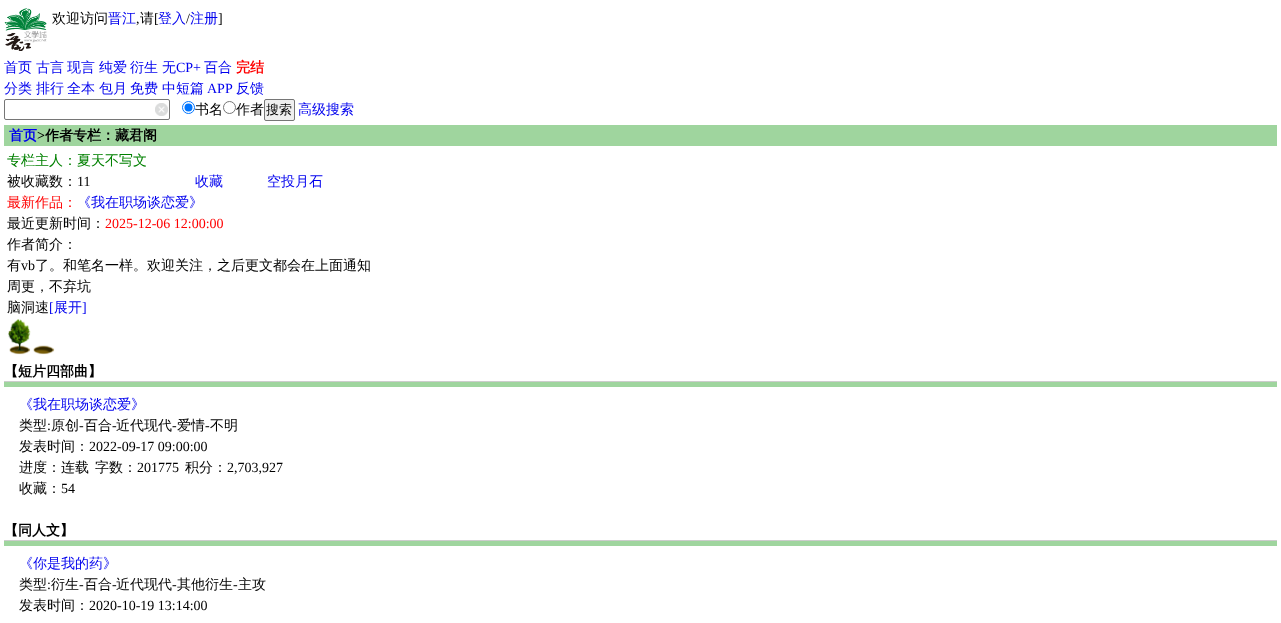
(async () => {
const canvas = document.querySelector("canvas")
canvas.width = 1281
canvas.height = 623
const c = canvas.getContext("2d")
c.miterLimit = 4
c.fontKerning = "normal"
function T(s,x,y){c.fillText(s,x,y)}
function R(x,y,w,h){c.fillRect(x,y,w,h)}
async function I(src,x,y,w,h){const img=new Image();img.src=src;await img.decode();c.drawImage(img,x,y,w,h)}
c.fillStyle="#fff"
R(0,0,1281,623)
await I("1.png",4,8,43,43)
c.font="500 14px WenQuanYi Zen Hei"
c.fillStyle="#000"
T("欢迎访问",52,23)
c.fillStyle="#00e"
T("晋江",108,23)
c.font="14px Liberation Serif"
c.fillStyle="#000"
T(",",136,23)
c.font="500 14px WenQuanYi Zen Hei"
T("请",140,23)
c.font="14px Liberation Serif"
T("[",154,23)
c.font="500 14px WenQuanYi Zen Hei"
c.fillStyle="#00e"
T("登入",158,23)
c.font="14px Liberation Serif"
c.fillStyle="#000"
T("/",186,23)
c.font="500 14px WenQuanYi Zen Hei"
c.fillStyle="#00e"
T("注册",190,23)
c.font="14px Liberation Serif"
c.fillStyle="#000"
T("]",218,23)
c.font="500 14px WenQuanYi Zen Hei"
c.fillStyle="#00e"
T("首页",4,72)
T("古言",36,72)
T("现言",67,72)
T("纯爱",99,72)
T("衍生",130,72)
T("无",162,72)
c.font="14px Liberation Serif"
T("CP+",176,72)
c.font="500 14px WenQuanYi Zen Hei"
T("百合",204,72)
c.font="bold 14px WenQuanYi Zen Hei"
c.fillStyle="#f00"
T("完结",236,72)
c.font="500 14px WenQuanYi Zen Hei"
c.fillStyle="#00e"
T("分类",4,93)
T("排行",36,93)
T("全本",67,93)
T("包月",99,93)
T("免费",130,93)
T("中短篇",162,93)
c.font="14px Liberation Serif"
T("APP",207,93)
c.font="500 14px WenQuanYi Zen Hei"
T("反馈",236,93)
c.beginPath()
c.roundRect(4.5,99.5,165,20,1.5)
c.strokeStyle="#767676"
c.stroke()
await I("2.png",155,103,13,13)
c.beginPath()
c.arc(188.5,107.5,6,0,7)
c.strokeStyle="#0075ff"
c.stroke()
c.fillStyle="#0075ff"
c.beginPath()
c.arc(188.5,107.5,4,0,7)
c.fill()
c.fillStyle="#000"
T("书名",195,114)
c.beginPath()
c.arc(229.5,107.5,6,0,7)
c.strokeStyle="#767676"
c.stroke()
T("作者",236,114)
c.fillStyle="#efefef"
c.beginPath()
c.roundRect(264.5,99.5,30,21,1.5)
c.fill()
c.stroke()
c.font="500 13px WenQuanYi Zen Hei"
c.fillStyle="#000"
T("搜索",266,114)
c.font="500 14px WenQuanYi Zen Hei"
c.fillStyle="#00e"
T("高级搜索",298,114)
c.fillStyle="#9fd59e"
R(4,125,1273,21)
c.font="bold 14px WenQuanYi Zen Hei"
c.fillStyle="#00e"
T("首页",9,140)
c.font="bold 14px Liberation Serif"
c.fillStyle="#000"
T(">",37,140)
c.font="bold 14px WenQuanYi Zen Hei"
T("作者专栏：藏君阁",45,140)
c.font="500 14px WenQuanYi Zen Hei"
c.fillStyle="#008000"
T("专栏主人：夏天不写文",7,165)
c.fillStyle="#000"
T("被收藏数：",7,186)
c.font="14px Liberation Serif"
T("11",77,186)
c.font="500 14px WenQuanYi Zen Hei"
c.fillStyle="#00e"
T("收藏",195,186)
T("空投月石",267,186)
c.fillStyle="#f00"
T("最新作品：",7,207)
c.fillStyle="#00e"
T("《我在职场谈恋爱》",77,207)
c.fillStyle="#000"
T("最近更新时间：",7,228)
c.font="14px Liberation Serif"
c.fillStyle="#f00"
T("2025-12-06 12:00:00",105,228)
c.font="500 14px WenQuanYi Zen Hei"
c.fillStyle="#000"
T("作者简介：",7,249)
T("有",7,270)
c.font="14px Liberation Serif"
T("vb",21,270)
c.font="500 14px WenQuanYi Zen Hei"
T("了。和笔名一样。欢迎关注，之后更文都会在上面通知",35,270)
T("周更，不弃坑",7,291)
T("脑洞速",7,312)
c.font="14px Liberation Serif"
c.fillStyle="#00e"
T("[",49,312)
c.font="500 14px WenQuanYi Zen Hei"
T("展开",54,312)
c.font="14px Liberation Serif"
T("]",82,312)
await I("3.png",8,319,23,36)
await I("4.png",33,345,22,10)
c.font="bold 14px WenQuanYi Zen Hei"
c.fillStyle="#000"
T("【短片四部曲】",4,376)
c.fillStyle="#9fd59e"
R(4,382,1273,5)
c.fillStyle="#ccc"
R(4,381,1273,1)
c.font="500 14px WenQuanYi Zen Hei"
c.fillStyle="#00e"
T("《我在职场谈恋爱》",19,409)
c.fillStyle="#000"
T("类型",19,430)
c.font="14px Liberation Serif"
T(":",47,430)
c.font="500 14px WenQuanYi Zen Hei"
T("原创",51,430)
c.font="14px Liberation Serif"
T("-",79,430)
c.font="500 14px WenQuanYi Zen Hei"
T("百合",84,430)
c.font="14px Liberation Serif"
T("-",112,430)
c.font="500 14px WenQuanYi Zen Hei"
T("近代现代",116,430)
c.font="14px Liberation Serif"
T("-",172,430)
c.font="500 14px WenQuanYi Zen Hei"
T("爱情",177,430)
c.font="14px Liberation Serif"
T("-",205,430)
c.font="500 14px WenQuanYi Zen Hei"
T("不明",210,430)
T("发表时间：",19,451)
c.font="14px Liberation Serif"
T("2022-09-17 09:00:00",89,451)
c.font="500 14px WenQuanYi Zen Hei"
T("进度：连载",19,472)
T("字数：",95,472)
c.font="14px Liberation Serif"
T("201775",137,472)
c.font="500 14px WenQuanYi Zen Hei"
T("积分：",185,472)
c.font="14px Liberation Serif"
T("2,703,927",227,472)
c.font="500 14px WenQuanYi Zen Hei"
T("收藏：",19,493)
c.font="14px Liberation Serif"
T("54",61,493)
c.font="bold 14px WenQuanYi Zen Hei"
T("【同人文】",4,535)
c.fillStyle="#9fd59e"
R(4,541,1273,5)
c.fillStyle="#ccc"
R(4,540,1273,1)
c.font="500 14px WenQuanYi Zen Hei"
c.fillStyle="#00e"
T("《你是我的药》",19,568)
c.fillStyle="#000"
T("类型",19,589)
c.font="14px Liberation Serif"
T(":",47,589)
c.font="500 14px WenQuanYi Zen Hei"
T("衍生",51,589)
c.font="14px Liberation Serif"
T("-",79,589)
c.font="500 14px WenQuanYi Zen Hei"
T("百合",84,589)
c.font="14px Liberation Serif"
T("-",112,589)
c.font="500 14px WenQuanYi Zen Hei"
T("近代现代",116,589)
c.font="14px Liberation Serif"
T("-",172,589)
c.font="500 14px WenQuanYi Zen Hei"
T("其他衍生",177,589)
c.font="14px Liberation Serif"
T("-",233,589)
c.font="500 14px WenQuanYi Zen Hei"
T("主攻",238,589)
T("发表时间：",19,610)
c.font="14px Liberation Serif"
T("2020-10-19 13:14:00",89,610)
})()
